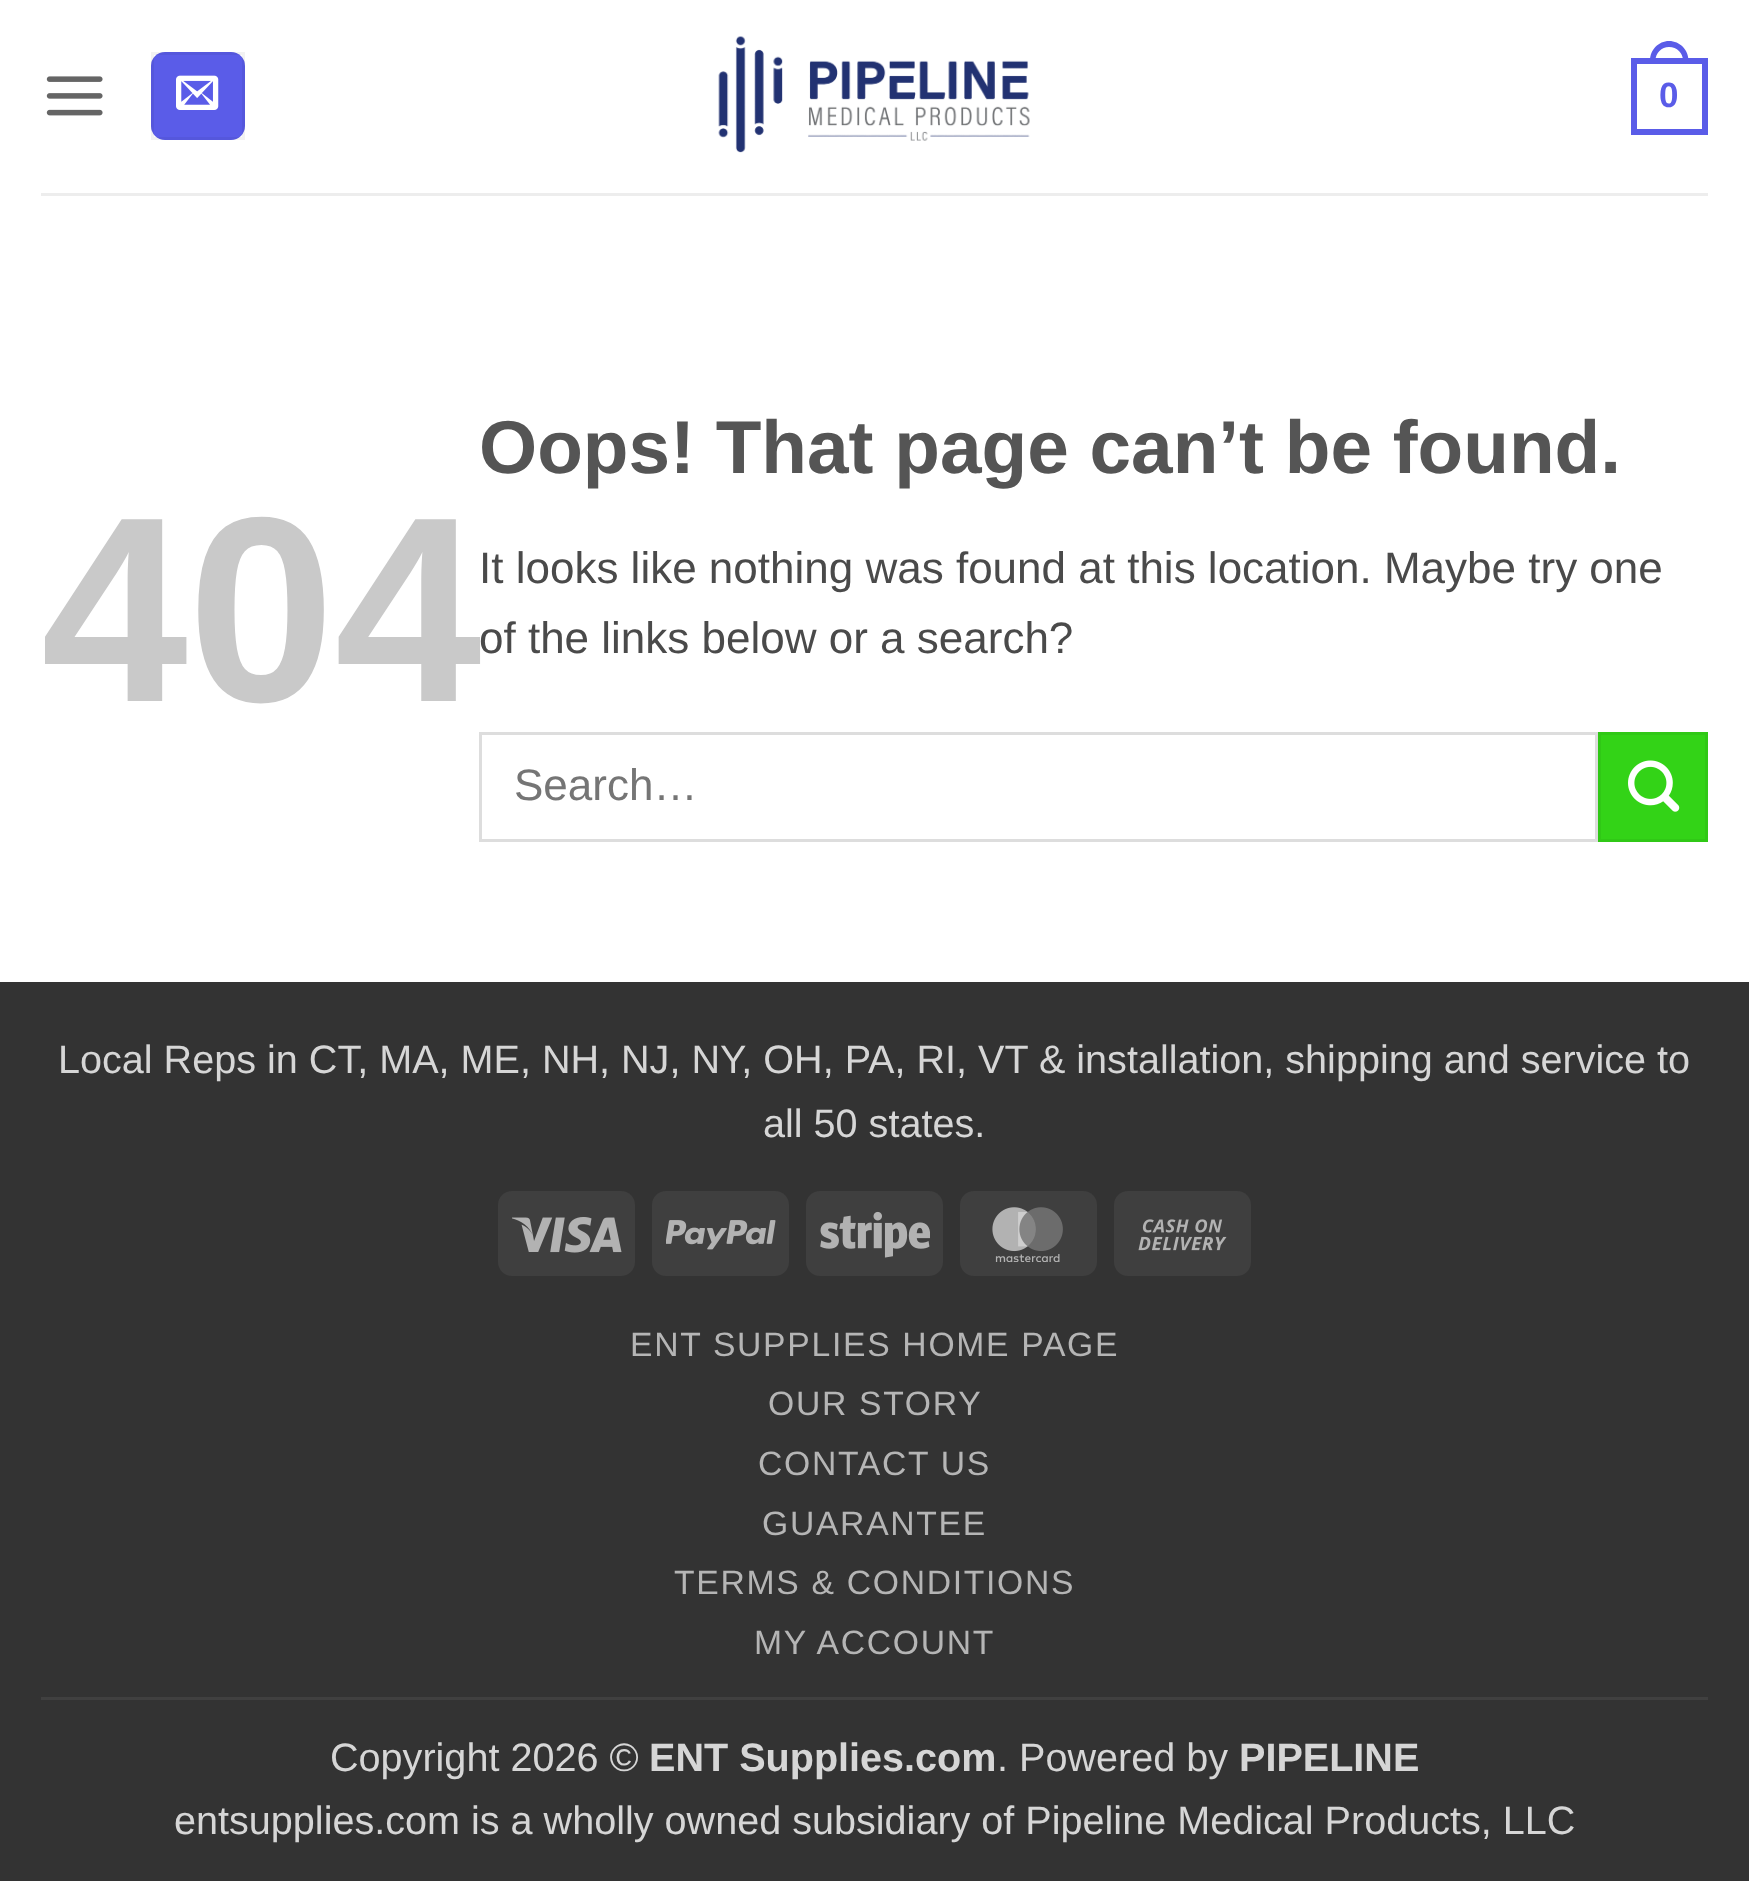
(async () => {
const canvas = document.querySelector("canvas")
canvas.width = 1749
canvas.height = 1881
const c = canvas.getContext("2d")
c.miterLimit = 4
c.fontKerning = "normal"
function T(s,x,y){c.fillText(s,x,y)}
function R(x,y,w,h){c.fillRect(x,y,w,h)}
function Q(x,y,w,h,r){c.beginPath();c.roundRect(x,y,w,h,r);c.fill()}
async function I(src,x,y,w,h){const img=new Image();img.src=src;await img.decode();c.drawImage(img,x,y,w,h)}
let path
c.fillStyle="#fff"
R(0,0,1749,1881)
await I("1.png",46,76,57,40)
c.fillStyle="#5a5ce8"
Q(151,52,94,88,14)
c.strokeStyle="#0000000d"
c.lineWidth=3
c.strokeRect(152.5,53.5,91,85)
await I("2.png",176,75,43,35)
await I("3.png",718,36,312,117)
c.strokeStyle="#5a5ce8"
c.lineWidth=6
c.strokeRect(1634,61,71,71)
path = new Path2D("M1669 41c11 0 19.5 9 19.5 19.5v2.5h-38.5v-2.5c0-10.5 8.5-19.5 19-19.5zm0 6c8 0 14 6 14 13.5v2.5h-27.5v-2.5c0-7.5 6-13.5 13.5-13.5z")
c.fill(path,"evenodd")
c.font="bold 35px Liberation Sans"
T("0",1659,107)
c.fillStyle="#ededed"
R(41,193,1667,3)
c.font="bold 264px Liberation Sans"
c.fillStyle="#c9c9c9"
T("404",41,701)
c.font="bold 74.75px Liberation Sans"
c.fillStyle="#555"
T("Oops! That page can’t be found.",479,473)
c.font="44px Liberation Sans"
c.fillStyle="#4a4a4a"
T("It looks like nothing was found at this location. Maybe try one",479,583)
T("of the links below or a search?",479,653)
c.strokeStyle="#ddd"
c.lineWidth=3
c.strokeRect(480.5,733.5,1116,107)
c.fillStyle="#757575"
T("Search…",514,800)
c.fillStyle="#33d317"
c.beginPath()
c.rect(1599.5,733.5,107,107)
c.fill()
c.strokeStyle="#30c816"
c.stroke()
await I("4.png",1628,760,52,52)
c.fillStyle="#333"
R(0,982,1749,899)
c.font="39.6px Liberation Sans"
c.fillStyle="#d6d6d6"
T("Local Reps in CT, MA, ME, NH, NJ, NY, OH, PA, RI, VT & installation, shipping and service to",58,1073)
T("all 50 states.",763,1137)
c.fillStyle="#3f3f3f"
Q(498,1191,137,85,14)
await I("5.png",512,1217,110,36)
Q(652,1191,137,85,14)
await I("6.png",666,1220,110,30)
Q(806,1191,137,85,14)
await I("7.png",820,1211,110,47)
Q(960,1191,137,85,14)
await I("8.png",992,1207,71,55)
Q(1114,1191,137,85,14)
await I("9.png",1138,1219,89,32)
c.fillStyle="#404040"
R(41,1697,1667,3)
c.letterSpacing="1.7px"
c.font="33.7px Liberation Sans"
c.fillStyle="#b5b5b5"
T("ENT SUPPLIES HOME PAGE",630,1356)
T("OUR STORY",768,1415)
T("CONTACT US",758,1475)
T("GUARANTEE",762,1535)
T("TERMS & CONDITIONS",674,1594)
T("MY ACCOUNT",754,1654)
c.letterSpacing="0px"
c.font="39.6px Liberation Sans"
c.fillStyle="#d6d6d6"
T("Copyright 2026 ©",330,1771)
c.font="bold 39.6px Liberation Sans"
T("ENT Supplies.com",649,1771)
c.font="39.6px Liberation Sans"
T(". Powered by",997,1771)
c.font="bold 39.6px Liberation Sans"
T("PIPELINE",1239,1771)
c.font="39.6px Liberation Sans"
T("entsupplies.com is a wholly owned subsidiary of Pipeline Medical Products, LLC",174,1834)
})()
